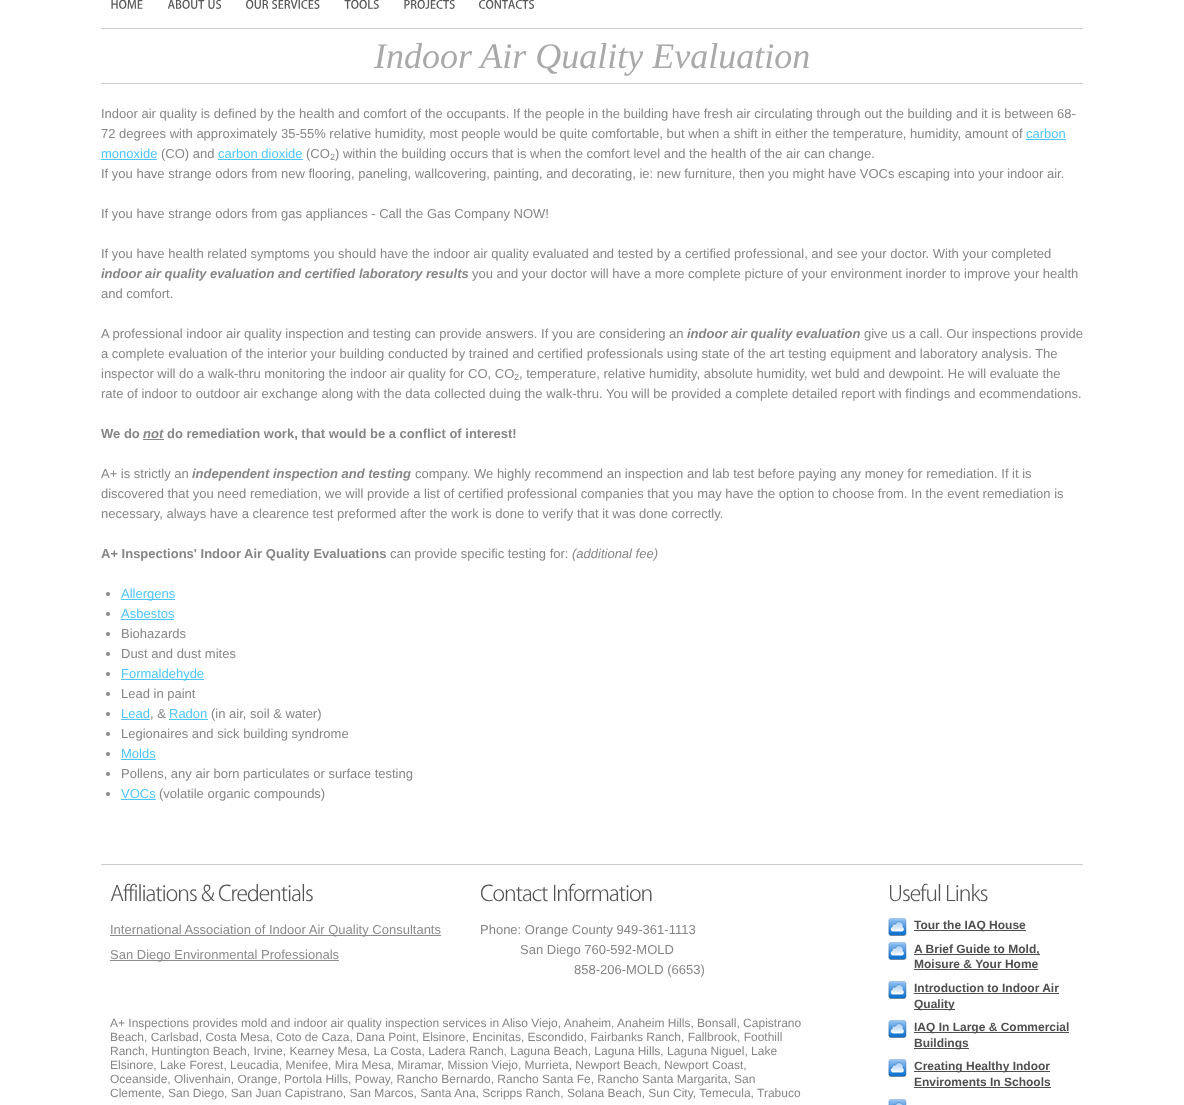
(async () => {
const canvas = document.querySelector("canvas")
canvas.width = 1184
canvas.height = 1105
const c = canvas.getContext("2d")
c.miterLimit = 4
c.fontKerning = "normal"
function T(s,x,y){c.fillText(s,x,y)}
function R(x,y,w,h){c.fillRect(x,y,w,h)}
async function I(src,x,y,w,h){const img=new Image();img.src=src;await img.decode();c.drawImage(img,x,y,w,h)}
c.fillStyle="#fff"
R(0,0,1184,1105)
await I("1.png",111,0,32,9)
await I("2.png",167,0,38,9)
await I("3.png",208,0,14,9)
await I("4.png",246,0,23,9)
await I("5.png",272,0,48,9)
await I("6.png",344,0,35,9)
await I("7.png",404,0,51,9)
await I("8.png",479,0,55,9)
c.fillStyle="#ccc"
R(101,28,982,1)
R(101,83,982,1)
c.font="italic 36px Liberation Serif"
c.fillStyle="#a9a9a9"
T("Indoor Air Quality Evaluation",374,68)
c.font="13px Liberation Sans"
c.fillStyle="#868686"
T("Indoor air quality is defined by the health and comfort of the occupants. If the people in the building have fresh air circulating through out the building and it is between 68-",101,118)
T("72 degrees with approximately 35-55% relative humidity, most people would be quite comfortable, but when a shift in either the temperature, humidity, amount of",101,138)
c.fillStyle="#50c5f9"
T("carbon",1026,138)
R(1026,139,40,1)
T("monoxide",101,158)
R(101,159,56,1)
c.fillStyle="#868686"
T("(CO) and",161,158)
c.fillStyle="#50c5f9"
T("carbon dioxide",218,158)
R(218,159,85,1)
c.fillStyle="#868686"
T("(CO",306,158)
c.font="9px Liberation Sans"
T("2",330,160)
c.font="13px Liberation Sans"
T(") within the building occurs that is when the comfort level and the health of the air can change.",335,158)
T("If you have strange odors from new flooring, paneling, wallcovering, painting, and decorating, ie: new furniture, then you might have VOCs escaping into your indoor air.",101,178)
T("If you have strange odors from gas appliances - Call the Gas Company NOW!",101,218)
T("If you have health related symptoms you should have the indoor air quality evaluated and tested by a certified professional, and see your doctor. With your completed",101,258)
c.font="italic bold 13px Liberation Sans"
T("indoor air quality evaluation and certified laboratory results",101,278)
c.font="13px Liberation Sans"
T("you and your doctor will have a more complete picture of your environment inorder to improve your health",472,278)
T("and comfort.",101,298)
T("A professional indoor air quality inspection and testing can provide answers. If you are considering an",101,338)
c.font="italic bold 13px Liberation Sans"
T("indoor air quality evaluation",687,338)
c.font="13px Liberation Sans"
T("give us a call. Our inspections provide",864,338)
T("a complete evaluation of the interior your building conducted by trained and certified professionals using state of the art testing equipment and laboratory analysis. The",101,358)
T("inspector will do a walk-thru monitoring the indoor air quality for CO, CO",101,378)
c.font="9px Liberation Sans"
T("2",514,380)
c.font="13px Liberation Sans"
T(", temperature, relative humidity, absolute humidity, wet buld and dewpoint. He will evaluate the",519,378)
T("rate of indoor to outdoor air exchange along with the data collected duing the walk-thru. You will be provided a complete detailed report with findings and ecommendations.",101,398)
c.font="bold 13px Liberation Sans"
T("We do",101,438)
c.font="italic bold 13px Liberation Sans"
T("not",143,438)
R(143,439,21,1)
c.font="bold 13px Liberation Sans"
T("do remediation work, that would be a conflict of interest!",167,438)
c.font="13px Liberation Sans"
T("A+ is strictly an",101,478)
c.font="italic bold 13px Liberation Sans"
T("independent inspection and testing",192,478)
c.font="13px Liberation Sans"
T("company. We highly recommend an inspection and lab test before paying any money for remediation. If it is",415,478)
T("discovered that you need remediation, we will provide a list of certified professional companies that you may have the option to choose from. In the event remediation is",101,498)
T("necessary, always have a clearence test preformed after the work is done to verify that it was done correctly.",101,518)
c.font="bold 13px Liberation Sans"
T("A+ Inspections' Indoor Air Quality Evaluations",101,558)
c.font="13px Liberation Sans"
T("can provide specific testing for:",390,558)
c.font="italic 13px Liberation Sans"
T("(additional fee)",572,558)
c.beginPath()
c.arc(108,594,2,0,7)
c.fill()
c.fillStyle="#50c5f9"
R(121,599,54,1)
c.font="13px Liberation Sans"
T("Allergens",121,598)
c.fillStyle="#868686"
c.beginPath()
c.arc(108,614,2,0,7)
c.fill()
c.fillStyle="#50c5f9"
T("Asbestos",121,618)
R(121,619,53,1)
c.fillStyle="#868686"
c.beginPath()
c.arc(108,634,2,0,7)
c.fill()
T("Biohazards",121,638)
c.beginPath()
c.arc(108,654,2,0,7)
c.fill()
T("Dust and dust mites",121,658)
c.beginPath()
c.arc(108,674,2,0,7)
c.fill()
c.fillStyle="#50c5f9"
R(121,679,83,1)
T("Formaldehyde",121,678)
c.fillStyle="#868686"
c.beginPath()
c.arc(108,694,2,0,7)
c.fill()
T("Lead in paint",121,698)
c.beginPath()
c.arc(108,714,2,0,7)
c.fill()
c.fillStyle="#50c5f9"
T("Lead",121,718)
R(121,719,29,1)
c.fillStyle="#868686"
T(", &",150,718)
c.fillStyle="#50c5f9"
T("Radon",169,718)
R(169,719,39,1)
c.fillStyle="#868686"
T("(in air, soil & water)",211,718)
c.beginPath()
c.arc(108,734,2,0,7)
c.fill()
T("Legionaires and sick building syndrome",121,738)
c.beginPath()
c.arc(108,754,2,0,7)
c.fill()
c.fillStyle="#50c5f9"
T("Molds",121,758)
R(121,759,35,1)
c.fillStyle="#868686"
c.beginPath()
c.arc(108,774,2,0,7)
c.fill()
T("Pollens, any air born particulates or surface testing",121,778)
c.beginPath()
c.arc(108,794,2,0,7)
c.fill()
c.fillStyle="#50c5f9"
T("VOCs",121,798)
R(121,799,35,1)
c.fillStyle="#868686"
T("(volatile organic compounds)",159,798)
c.fillStyle="#ccc"
R(101,864,982,1)
await I("9.png",110,883,87,19)
await I("10.png",201,884,14,18)
await I("11.png",219,884,94,18)
c.fillStyle="#8c8c8c"
R(110,935,331,1)
T("International Association of Indoor Air Quality Consultants",110,934)
R(110,960,229,1)
T("San Diego Environmental Professionals",110,959)
await I("12.png",481,884,67,18)
await I("13.png",554,883,98,19)
c.fillStyle="#868686"
T("Phone: Orange County 949-361-1113",480,934)
T("San Diego 760-592-MOLD",520,954)
T("858-206-MOLD (6653)",574,974)
c.font="12px Liberation Sans"
T("A+ Inspections provides mold and indoor air quality inspection services in Aliso Viejo, Anaheim, Anaheim Hills, Bonsall, Capistrano",110,1027)
T("Beach, Carlsbad, Costa Mesa, Coto de Caza, Dana Point, Elsinore, Encinitas, Escondido, Fairbanks Ranch, Fallbrook, Foothill",110,1041)
T("Ranch, Huntington Beach, Irvine, Kearney Mesa, La Costa, Ladera Ranch, Laguna Beach, Laguna Hills, Laguna Niguel, Lake",110,1055)
T("Elsinore, Lake Forest, Leucadia, Menifee, Mira Mesa, Miramar, Mission Viejo, Murrieta, Newport Beach, Newport Coast,",110,1069)
T("Oceanside, Olivenhain, Orange, Portola Hills, Poway, Rancho Bernardo, Rancho Santa Fe, Rancho Santa Margarita, San",110,1083)
T("Clemente, San Diego, San Juan Capistrano, San Marcos, Santa Ana, Scripps Ranch, Solana Beach, Sun City, Temecula, Trabuco",110,1097)
await I("14.png",890,883,51,19)
await I("15.png",947,884,41,18)
await I("16.png",888,918,19,19)
c.fillStyle="#4f4f4f"
R(914,930,112,1)
c.font="bold 12px Liberation Sans"
T("Tour the IAQ House",914,929)
await I("16.png",888,942,19,19)
R(914,954,126,1)
T("A Brief Guide to Mold,",914,953)
T("Moisure & Your Home",914,968)
R(914,969,124,1)
await I("16.png",888,981,19,19)
T("Introduction to Indoor Air",914,992)
R(914,993,145,1)
R(914,1009,41,1)
T("Quality",914,1008)
await I("16.png",888,1020,19,19)
R(914,1032,155,1)
T("IAQ In Large & Commercial",914,1031)
R(914,1048,55,1)
T("Buildings",914,1047)
await I("16.png",888,1059,19,19)
R(914,1071,136,1)
T("Creating Healthy Indoor",914,1070)
T("Enviroments In Schools",914,1086)
R(914,1087,137,1)
await I("17.png",888,1099,19,6)
})()
